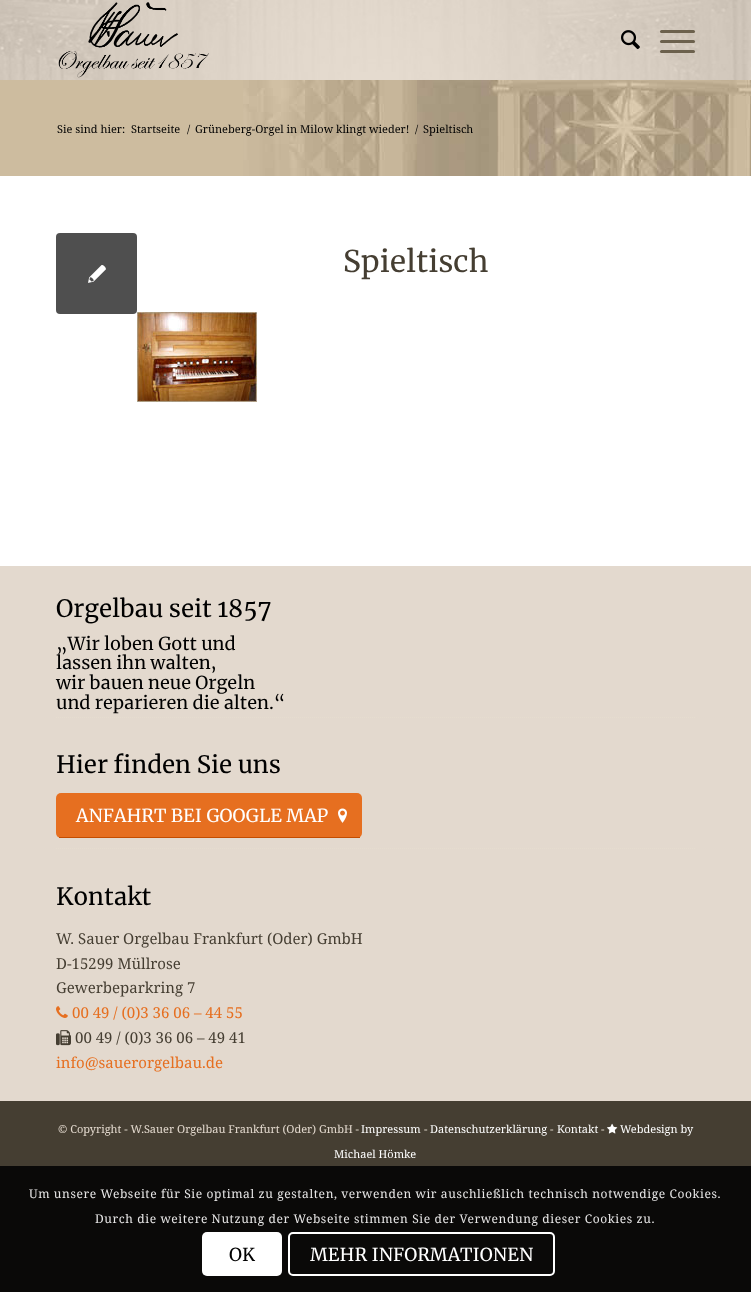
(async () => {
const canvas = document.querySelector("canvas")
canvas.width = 751
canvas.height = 1292
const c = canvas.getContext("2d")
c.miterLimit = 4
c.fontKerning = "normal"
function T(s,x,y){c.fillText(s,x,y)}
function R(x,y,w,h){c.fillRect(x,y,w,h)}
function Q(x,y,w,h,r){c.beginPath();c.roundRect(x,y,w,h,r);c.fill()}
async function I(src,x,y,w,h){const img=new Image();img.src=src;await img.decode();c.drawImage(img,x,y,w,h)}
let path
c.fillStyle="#e3d9ce"
R(0,0,751,1292)
await I("1.png",0,0,751,80)
await I("2.png",58,2,151,76)
await I("3.png",621,30,19,20)
c.fillStyle="#6c614d"
Q(660,40,35,3,1.5)
Q(660,30,35,3,1.5)
Q(660,50,35,3,1.5)
c.fillStyle="#cdbc9f"
R(0,80,243,96)
await I("4.png",243,80,508,96)
c.font="11px Noto Serif"
c.fillStyle="#000"
T("Sie sind hier:",57,133)
T("Startseite",131,133)
T("/",187,133)
T("Grüneberg-Orgel in Milow klingt wieder!",195,133)
T("/",415,133)
T("Spieltisch",423,133)
c.fillStyle="#fff"
R(0,176,751,390)
c.fillStyle="#4f4f4f"
Q(56,233,81,81,4)
await I("5.png",88,265,18,18)
c.font="30px Merriweather"
c.fillStyle="#453e32"
T("Spieltisch",343,272)
await I("6.png",137,312,120,90)
path = new Path2D("M56 717.5h639")
c.strokeStyle="#e6ddcf"
c.setLineDash([1,1])
c.stroke(path)
c.font="24px Merriweather"
c.fillStyle="#000"
T("Orgelbau seit 1857",56,617)
c.font="18px Merriweather"
T("„Wir loben Gott und",56,650)
T("lassen ihn walten,",56,669)
T("wir bauen neue Orgeln",56,689)
T("und reparieren die alten.“",56,709)
path = new Path2D("M56 848.5h639")
c.stroke(path)
c.font="24px Merriweather"
T("Hier finden Sie uns",56,773)
c.fillStyle="#e66f20"
Q(56,793,306,45,5)
c.fillStyle="#c44d00"
R(59,837,301,1)
c.font="18px Merriweather"
c.fillStyle="#fff"
T("ANFAHRT BEI GOOGLE MAP",76,822)
await I("7.png",338,808,9,15)
c.font="24px Merriweather"
c.fillStyle="#000"
T("Kontakt",56,905)
c.font="15px Noto Serif"
c.fillStyle="#453e32"
T("W. Sauer Orgelbau Frankfurt (Oder) GmbH",56,944)
T("D-15299 Müllrose",56,969)
T("Gewerbeparkring 7",56,993)
await I("8.png",56,1006,12,12)
c.fillStyle="#e66f20"
T("00 49 / (0)3 36 06 – 44 55",72,1018)
await I("9.png",56,1030,15,16)
c.fillStyle="#453e32"
T("00 49 / (0)3 36 06 – 49 41",75,1043)
c.fillStyle="#e66f20"
T("info@sauerorgelbau.de",56,1068)
c.fillStyle="#453e32"
R(0,1101,751,65)
c.font="11px Noto Serif"
c.fillStyle="#e3d9ce"
T("© Copyright - W.Sauer Orgelbau Frankfurt (Oder) GmbH -",58,1133)
await I("10.png",607,1123,11,11)
c.fillStyle="#fff"
T("Webdesign by",620,1133)
T("Michael Hömke",334,1158)
T("Impressum",361,1133)
c.fillStyle="#e3d9ce"
T("-",424,1133)
c.fillStyle="#fff"
T("Datenschutzerklärung",430,1133)
c.fillStyle="#e3d9ce"
T("-",550,1133)
c.fillStyle="#fff"
T("Kontakt",557,1133)
c.fillStyle="#e3d9ce"
T("-",601,1133)
c.fillStyle="#0a0908"
R(0,1166,751,126)
c.letterSpacing="0.6px"
c.font="12px Noto Serif"
c.fillStyle="#e7e6e6"
T("Um unsere Webseite für Sie optimal zu gestalten, verwenden wir auschließlich technisch notwendige Cookies.",29,1198)
T("Durch die weitere Nutzung der Webseite stimmen Sie der Verwendung dieser Cookies zu.",95,1223)
c.fillStyle="#fff"
Q(202,1232,80,44,5)
c.letterSpacing="0px"
c.font="18px Merriweather"
c.fillStyle="#000"
T("OK",229,1261)
c.beginPath()
c.roundRect(289,1233,265,42,4)
c.strokeStyle="#fff"
c.lineWidth=2
c.setLineDash([])
c.stroke()
c.fillStyle="#fff"
T("MEHR INFORMATIONEN",310,1261)
})()
